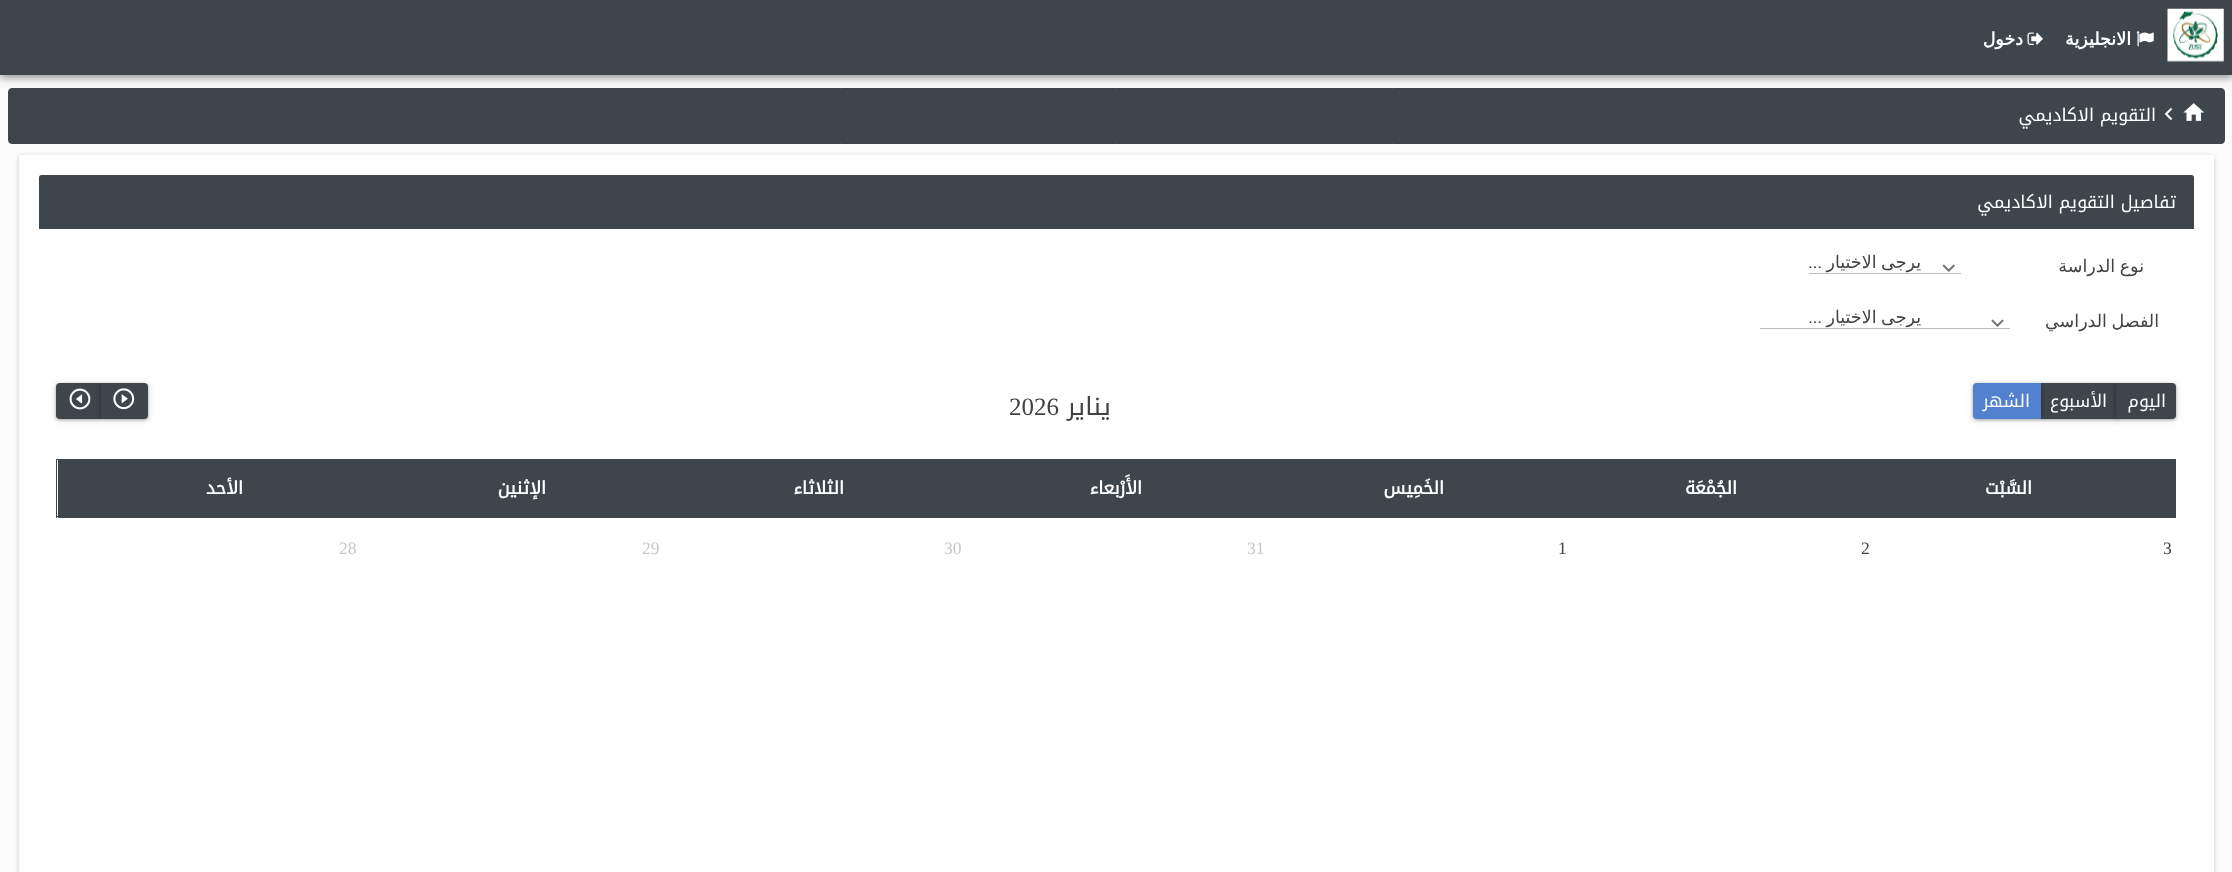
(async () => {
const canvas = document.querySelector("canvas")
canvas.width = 2232
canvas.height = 872
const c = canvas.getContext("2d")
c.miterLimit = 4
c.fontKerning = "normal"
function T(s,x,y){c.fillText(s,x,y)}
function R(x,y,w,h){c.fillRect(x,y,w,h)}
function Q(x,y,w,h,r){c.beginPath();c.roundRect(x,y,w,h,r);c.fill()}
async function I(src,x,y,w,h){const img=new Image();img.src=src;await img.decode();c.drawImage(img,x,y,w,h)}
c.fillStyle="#fcfbfb"
R(0,0,2232,872)
c.fillStyle="#00000042"
c.filter="blur(3px)"
c.beginPath()
c.rect(0,3,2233,75)
c.fill()
c.filter="none"
c.fillStyle="#3e464c"
c.beginPath()
c.roundRect(8.5,88.5,2216,55,3.5)
c.fill()
c.strokeStyle="#3e464c"
c.stroke()
c.fillStyle="#00000029"
c.filter="blur(6px)"
c.beginPath()
c.rect(0,3,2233,75)
c.fill()
c.filter="none"
c.fillStyle="#3e464c"
R(0,0,2232,75)
await I("1.png",2167,8,57,54)
await I("2.png",2136,31,18,16)
c.direction="rtl"
c.font="bold 17.5px DejaVu Sans"
c.fillStyle="#fff"
T("الانجليزية",2131,45)
await I("3.png",2027,32,16,13)
T("دخول",2023,45)
await I("4.png",2183,103,21,18)
await I("5.png",2164,107,9,14)
c.font="17.5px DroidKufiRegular"
T("التقويم الاكاديمي",2156,121)
c.fillStyle="#00000024"
c.filter="blur(0.5px)"
c.beginPath()
c.roundRect(19,156,2195,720,2.5)
c.fill()
c.filter="none"
c.fillStyle="#00000033"
c.filter="blur(2px)"
c.beginPath()
c.roundRect(19,156,2195,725,2.5)
c.fill()
c.filter="none"
c.fillStyle="#fff"
Q(19,155,2195,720,2.5)
c.fillStyle="#3e464c"
c.beginPath()
c.roundRect(39,175,2155,54,[2.5,2.5,0,0])
c.fill()
c.fillStyle="#fff"
T("تفاصيل التقويم الاكاديمي",2176,208)
c.wordSpacing="-1px"
c.font="17.5px DejaVu Sans"
c.fillStyle="#424242"
T("نوع الدراسة",2144,272)
c.fillStyle="#bdbdbd"
R(1809,273,152,1)
await I("6.png",1942,264,13,8)
c.fillStyle="#424242"
T("يرجى الاختيار",1921,268)
c.wordSpacing="0px"
c.font="17.5px Roboto"
T("...",1822,268)
c.wordSpacing="-1px"
c.font="17.5px DejaVu Sans"
T("الفصل الدراسي",2159,327)
c.fillStyle="#bdbdbd"
R(1760,328,250,1)
await I("7.png",1991,319,13,8)
c.fillStyle="#424242"
T("يرجى الاختيار",1921,323)
c.wordSpacing="0px"
c.font="17.5px Roboto"
T("...",1822,323)
c.fillStyle="#00000029"
c.filter="blur(3px)"
c.beginPath()
c.rect(2040,384,78,36)
c.fill()
c.filter="none"
c.fillStyle="#00000042"
c.filter="blur(1.5px)"
c.beginPath()
c.rect(2040,384,78,36)
c.fill()
c.filter="none"
c.fillStyle="#3e464c"
R(2041,383,75,36)
c.fillStyle="#00000029"
c.filter="blur(3px)"
c.beginPath()
c.roundRect(2116,384,60,36,4)
c.fill()
c.filter="none"
c.fillStyle="#00000042"
c.filter="blur(1.5px)"
c.beginPath()
c.roundRect(2116,384,60,36,4)
c.fill()
c.filter="none"
c.fillStyle="#3e464c"
c.beginPath()
c.roundRect(2116,383,60,36,[0,4,4,0])
c.fill()
c.font="17.5px DroidKufiRegular"
c.fillStyle="#fff"
T("اليوم",2166,407)
T("الأسبوع",2107,407)
c.fillStyle="#00000029"
c.filter="blur(3px)"
c.beginPath()
c.roundRect(1973,384,68,36,4)
c.fill()
c.filter="none"
c.fillStyle="#00000042"
c.filter="blur(1.5px)"
c.beginPath()
c.roundRect(1973,384,68,36,4)
c.fill()
c.filter="none"
c.fillStyle="#5180ce"
c.beginPath()
c.roundRect(1973,383,68,36,[4,0,0,4])
c.fill()
c.fillStyle="#fff"
T("الشهر",2030,407)
c.font="25px DroidKufiRegular"
c.fillStyle="#424242"
T("يناير",1111,415)
c.direction="ltr"
c.font="25px Liberation Serif"
T("2026",1009,415)
c.fillStyle="#00000029"
c.filter="blur(3px)"
c.beginPath()
c.roundRect(56,384,47,36,4)
c.fill()
c.filter="none"
c.fillStyle="#00000042"
c.filter="blur(1.5px)"
c.beginPath()
c.roundRect(56,384,47,36,4)
c.fill()
c.filter="none"
c.fillStyle="#3e464c"
c.beginPath()
c.roundRect(56,383,47,36,[4,0,0,4])
c.fill()
c.fillStyle="#00000029"
c.filter="blur(3px)"
c.beginPath()
c.roundRect(101,384,47,36,4)
c.fill()
c.filter="none"
c.fillStyle="#00000042"
c.filter="blur(1.5px)"
c.beginPath()
c.roundRect(101,384,47,36,4)
c.fill()
c.filter="none"
c.fillStyle="#3e464c"
c.beginPath()
c.roundRect(101,383,47,36,[0,4,4,0])
c.fill()
await I("8.png",113,388,22,22)
await I("9.png",69,388,22,22)
R(58,460,2117,58)
R(56,459,2120,1)
R(2175,459,1,59)
R(56,516,2,1)
R(56,459,1,59)
c.direction="rtl"
c.font="bold 17.5px DroidKufiRegular"
c.fillStyle="#fff"
T("السَّبْت",2032,494)
T("الجُمْعَة",1737,494)
T("الخَمِيس",1444,494)
T("الأَرْبعاء",1142,494)
T("الثلاثاء",844,494)
T("الإثنين",546,494)
T("الأحد",243,494)
c.direction="ltr"
c.font="17.5px Liberation Serif"
c.fillStyle="#424242"
T("3",2163,554)
T("2",1861,554)
T("1",1558,554)
c.fillStyle="#c6c6c6"
T("31",1247,554)
T("30",944,554)
T("29",642,554)
T("28",339,554)
})()
